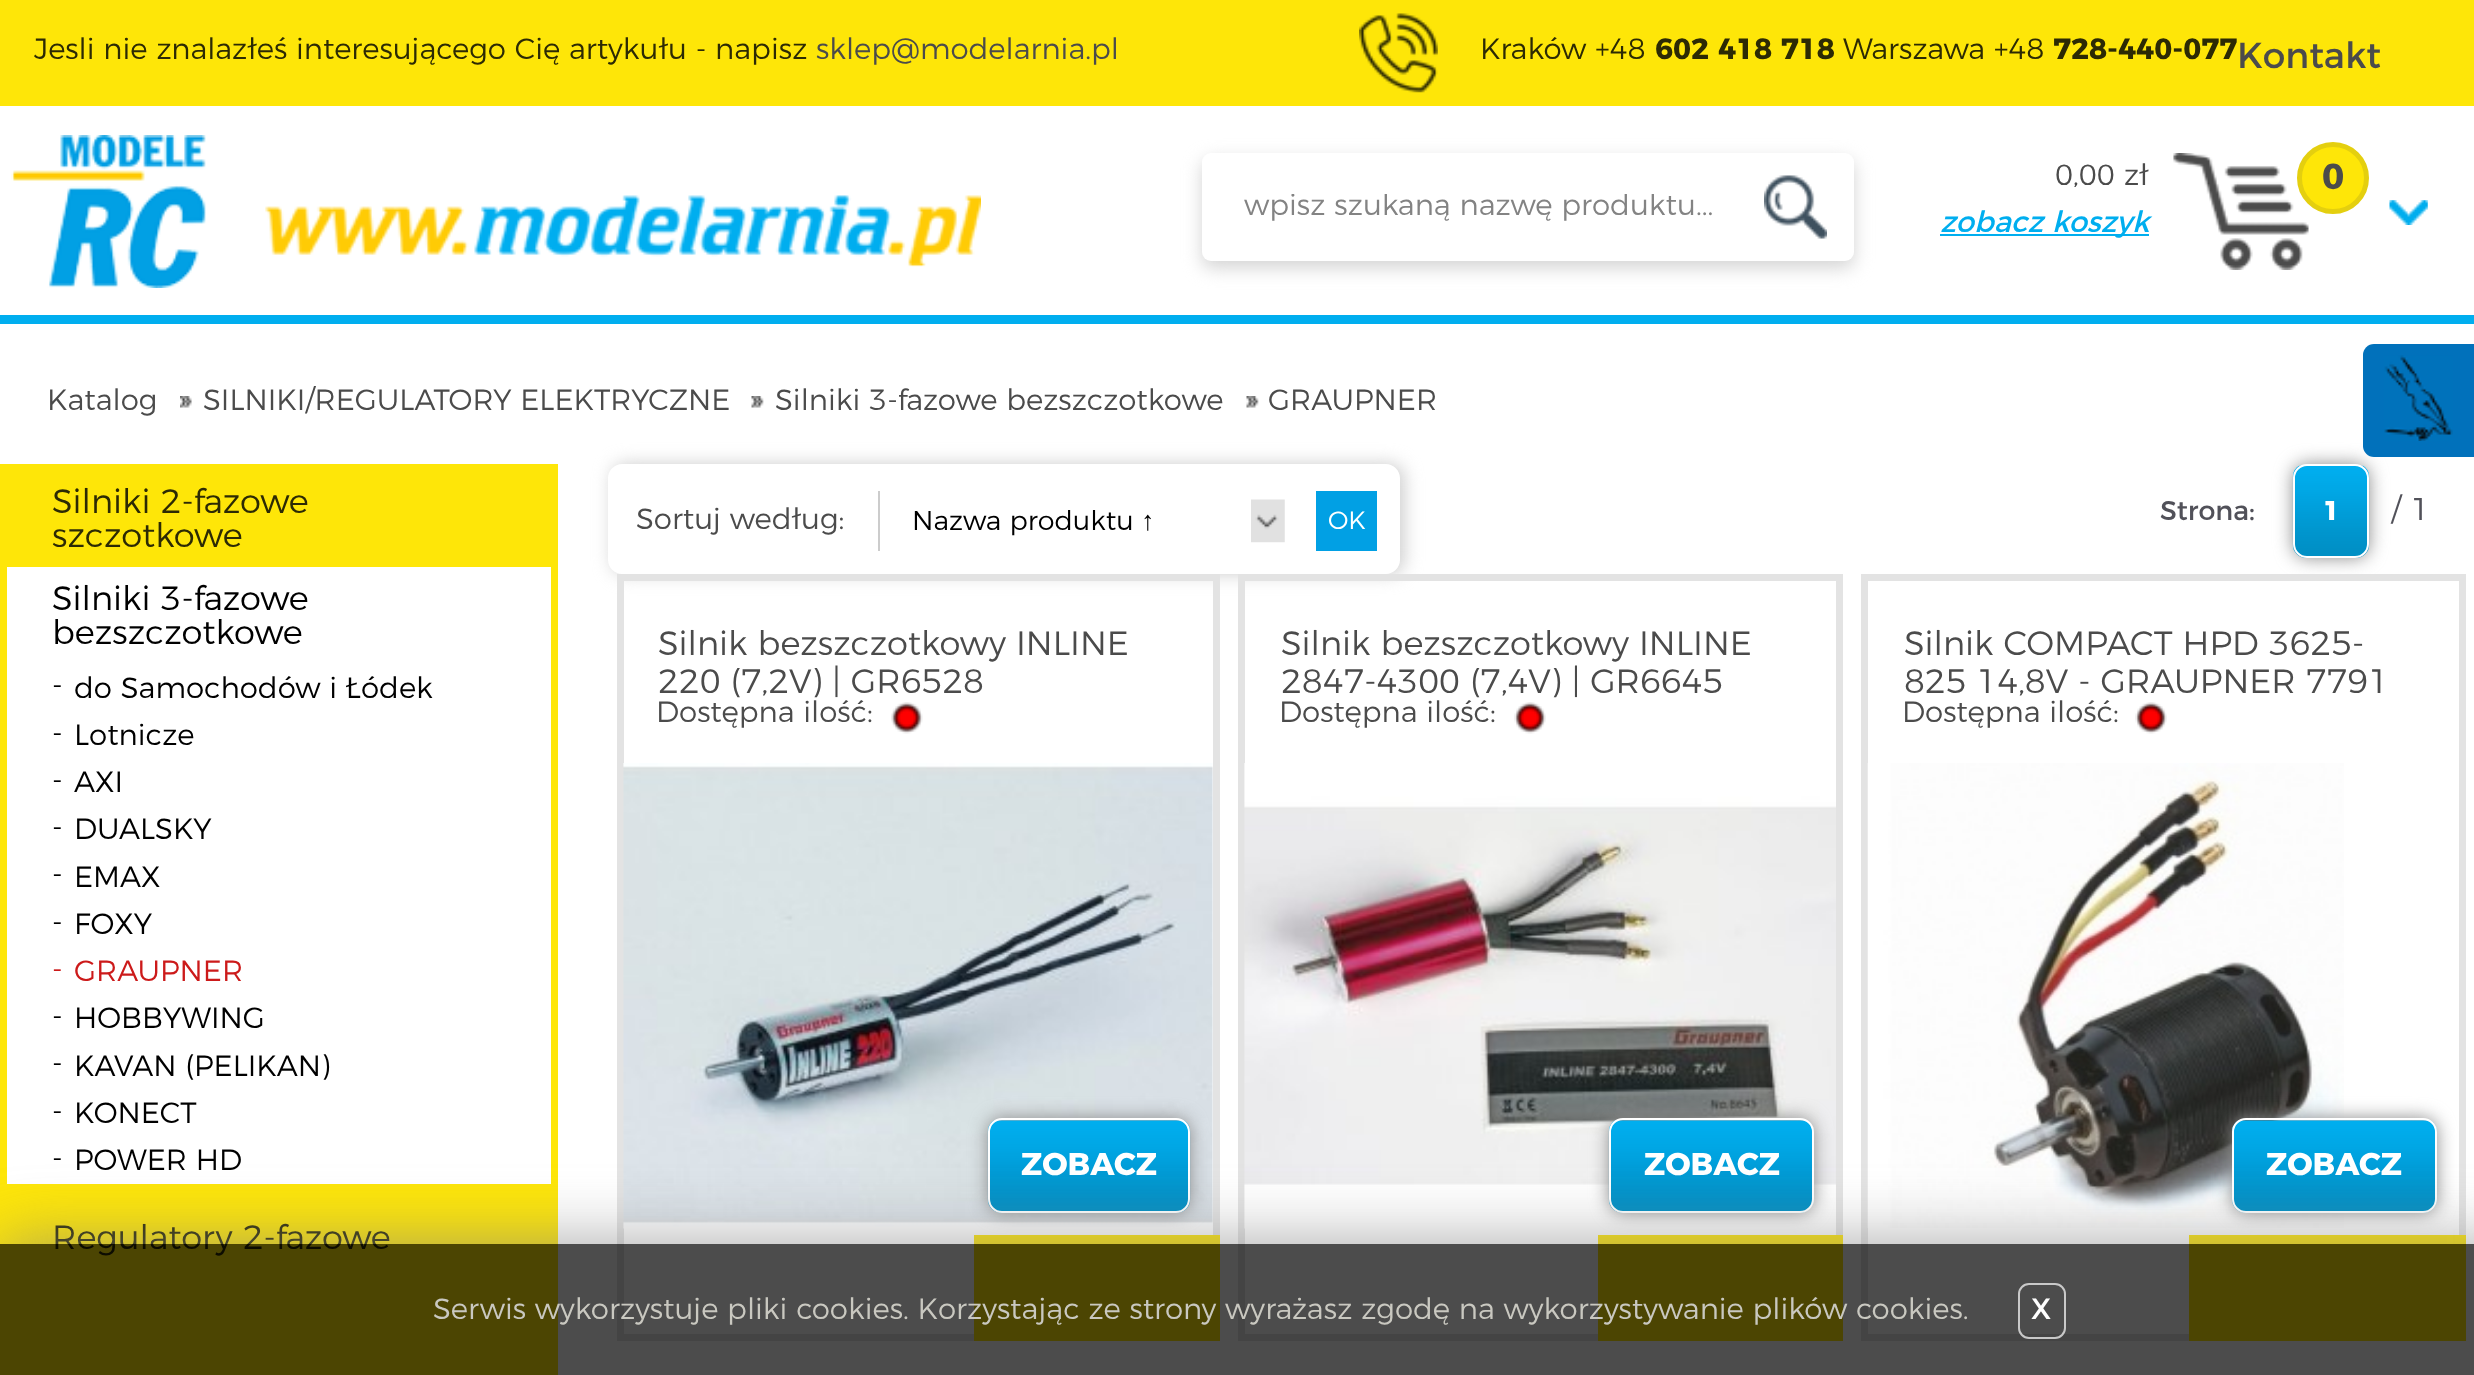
(async () => {
const canvas = document.querySelector("canvas")
canvas.width = 2474
canvas.height = 1375
const c = canvas.getContext("2d")
c.miterLimit = 4
c.fontKerning = "normal"
function T(s,x,y){c.fillText(s,x,y)}
function R(x,y,w,h){c.fillRect(x,y,w,h)}
function Q(x,y,w,h,r){c.beginPath();c.roundRect(x,y,w,h,r);c.fill()}
async function I(src,x,y,w,h){const img=new Image();img.src=src;await img.decode();c.drawImage(img,x,y,w,h)}
let path
c.fillStyle="#fff"
R(0,0,2474,1375)
c.fillStyle="#fee608"
R(0,0,2474,106)
c.font="300 29.25px Montserrat"
c.fillStyle="#2c2a04"
T("Jesli nie znalazłeś interesującego Cię artykułu - napisz",34,59)
c.fillStyle="#4b4b4b"
T("sklep@modelarnia.pl",816,59)
await I("1.png",1359,13,79,80)
c.fillStyle="#2c2a04"
T("Kraków +48",1480,59)
c.font="bold 29.25px Montserrat"
T("602 418 718",1655,59)
c.font="300 29.25px Montserrat"
T("Warszawa +48",1843,59)
c.font="bold 29.25px Montserrat"
T("728-440-077",2053,59)
c.font="36px Montserrat"
c.fillStyle="#4b4b4b"
T("Kontakt",2237,68)
await I("2.png",11,135,970,153)
c.fillStyle="#d4d4d4"
c.filter="blur(9px)"
c.beginPath()
c.roundRect(1202,160,652,108,9)
c.fill()
c.filter="none"
c.fillStyle="#fff"
Q(1202,153,652,108,9)
c.save()
c.beginPath()
c.rect(1244,194,493,29)
c.clip()
c.font="300 29.25px Montserrat"
c.fillStyle="#838383"
T("wpisz szukaną nazwę produktu...",1244,215)
c.restore()
await I("3.png",1764,175,63,64)
await I("4.png",2173,153,136,117)
c.font="300 29.25px Montserrat"
c.fillStyle="#4b4b4b"
T("0,00 zł",2055,185)
c.fillStyle="#fee608"
c.beginPath()
c.arc(2333,178,33.5,0,7)
c.fill()
c.strokeStyle="#e4cf0f"
c.lineWidth=5
c.stroke()
c.font="bold 36px Montserrat"
c.fillStyle="#4b4b4b"
T("0",2322,189)
c.fillStyle="#00aeef"
R(1940,234,209,2)
c.font="italic 29.25px Montserrat"
T("zobacz koszyk",1940,232)
await I("5.png",2389,200,39,25)
R(0,315,2474,9)
await I("6.png",180,396,12,12)
c.font="300 29.25px Montserrat"
c.fillStyle="#4b4b4b"
T("Katalog",47,410)
await I("7.png",751,396,13,12)
T("SILNIKI/REGULATORY ELEKTRYCZNE",203,410)
await I("8.png",1246,396,13,12)
T("Silniki 3-fazowe bezszczotkowe",775,410)
T("GRAUPNER",1268,410)
c.fillStyle="#fee608"
R(0,464,558,911)
c.font="300 33.75px Montserrat"
c.fillStyle="#2c2a04"
T("Silniki 2-fazowe",52,513)
T("szczotkowe",52,547)
c.fillStyle="#fff"
R(7,567,544,617)
c.fillStyle="#000"
T("Silniki 3-fazowe",52,610)
T("bezszczotkowe",52,644)
c.font="300 29.25px Montserrat"
T("-",52,695)
T("do Samochodów i Łódek",74,698)
T("-",52,743)
T("Lotnicze",74,745)
T("-",52,790)
T("AXI",74,792)
T("-",52,837)
T("DUALSKY",74,839)
T("-",52,884)
T("EMAX",74,887)
T("-",52,932)
T("FOXY",74,934)
c.fillStyle="#cc1a1a"
T("-",52,979)
T("GRAUPNER",74,981)
c.fillStyle="#000"
T("-",52,1026)
T("HOBBYWING",74,1028)
T("-",52,1073)
T("KAVAN (PELIKAN)",74,1076)
T("-",52,1121)
T("KONECT",74,1123)
T("-",52,1168)
T("POWER HD",74,1170)
c.font="300 33.75px Montserrat"
c.fillStyle="#2c2a04"
T("Regulatory 2-fazowe",52,1249)
c.save()
path = new Path2D("M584 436h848v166h-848zm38 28h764c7.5 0 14 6.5 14 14v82c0 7.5-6.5 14-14 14h-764c-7.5 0-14-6.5-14-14v-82c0-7.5 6.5-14 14-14z")
c.clip(path,"evenodd")
c.fillStyle="#ccc"
c.filter="blur(9px)"
c.beginPath()
c.roundRect(612,464,792,110,14)
c.fill()
c.filter="none"
c.restore()
c.fillStyle="#ccc"
R(878,491,2,60)
c.font="300 29.25px Montserrat"
c.fillStyle="#4b4b4b"
T("Sortuj według:",636,529)
await I("9.png",1251,499,34,44)
c.font="300 27px Montserrat"
c.fillStyle="#000"
T("Nazwa produktu",912,530)
c.font="27px Liberation Serif"
T("↑",1141,530)
c.fillStyle="#01a0e4"
R(1316,491,61,60)
c.font="300 25px Montserrat"
c.fillStyle="#fff"
T("OK",1328,529)
c.font="27px Montserrat"
c.fillStyle="#515159"
T("Strona:",2160,520)
c.fillStyle="#8d8d8d"
c.filter="blur(9px)"
c.beginPath()
c.roundRect(2293,464,76,94,14)
c.fill()
c.filter="none"
await I("10.png",2292,465,78,93)
c.beginPath()
c.roundRect(2294,465,74,92,13)
c.strokeStyle="#fff"
c.lineWidth=2
c.stroke()
c.font="bold 27px Montserrat"
c.fillStyle="#fff"
T("1",2323,520)
c.font="300 31.5px Montserrat"
c.fillStyle="#515159"
T("/ 1",2391,520)
c.strokeStyle="#e3e3e3"
c.lineWidth=7
c.strokeRect(620.5,577.5,596,760)
c.font="300 33.75px Montserrat"
c.fillStyle="#4b4b4b"
T("Silnik bezszczotkowy INLINE",658,655)
T("220 (7,2V) | GR6528",658,693)
c.font="300 29.25px Montserrat"
T("Dostępna ilość:",656,722)
await I("11.png",891,702,32,32)
await I("12.png",623,763,590,466)
c.fillStyle="#8d8d8d"
c.filter="blur(9px)"
c.beginPath()
c.roundRect(988,1118,202,95,14)
c.fill()
c.filter="none"
await I("13.png",987,1120,204,93)
c.beginPath()
c.roundRect(989,1119,200,93,13)
c.strokeStyle="#fff"
c.lineWidth=2
c.stroke()
c.font="bold 31.5px Montserrat"
c.fillStyle="#fff"
T("ZOBACZ",1021,1175)
c.fillStyle="#fee608"
R(974,1235,246,106)
c.strokeStyle="#e3e3e3"
c.lineWidth=7
c.strokeRect(1241.5,577.5,598,760)
c.font="300 33.75px Montserrat"
c.fillStyle="#4b4b4b"
T("Silnik bezszczotkowy INLINE",1281,655)
T("2847-4300 (7,4V) | GR6645",1281,693)
c.font="300 29.25px Montserrat"
T("Dostępna ilość:",1279,722)
await I("14.png",1514,702,32,32)
await I("15.png",1244,763,592,466)
c.fillStyle="#8d8d8d"
c.filter="blur(9px)"
c.beginPath()
c.roundRect(1609,1118,205,95,14)
c.fill()
c.filter="none"
await I("16.png",1608,1120,206,93)
c.beginPath()
c.roundRect(1610,1119,203,93,13)
c.strokeStyle="#fff"
c.lineWidth=2
c.stroke()
c.font="bold 31.5px Montserrat"
c.fillStyle="#fff"
T("ZOBACZ",1644,1175)
c.fillStyle="#fee608"
R(1598,1235,245,106)
c.strokeStyle="#e3e3e3"
c.lineWidth=7
c.strokeRect(1864.5,577.5,598,760)
c.font="300 33.75px Montserrat"
c.fillStyle="#4b4b4b"
T("Silnik COMPACT HPD 3625-",1904,655)
T("825 14,8V - GRAUPNER 7791",1904,693)
c.font="300 29.25px Montserrat"
T("Dostępna ilość:",1902,722)
await I("14.png",2135,702,32,32)
await I("17.png",1867,763,477,465)
c.fillStyle="#8d8d8d"
c.filter="blur(9px)"
c.beginPath()
c.roundRect(2232,1118,205,95,14)
c.fill()
c.filter="none"
await I("18.png",2232,1120,205,93)
c.beginPath()
c.roundRect(2233,1119,203,93,13)
c.strokeStyle="#fff"
c.lineWidth=2
c.stroke()
c.font="bold 31.5px Montserrat"
c.fillStyle="#fff"
T("ZOBACZ",2266,1175)
c.fillStyle="#fee608"
R(2189,1235,277,106)
c.fillStyle="#0171bb"
Q(2363,344,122,113,11)
await I("19.png",2384,355,69,86)
c.save()
path = new Path2D("M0 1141h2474v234h-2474zm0 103h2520v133h-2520z")
c.clip(path,"evenodd")
c.fillStyle="#808080b3"
c.filter="blur(34px)"
c.beginPath()
c.rect(0,1244,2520,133)
c.fill()
c.filter="none"
c.restore()
c.fillStyle="#000000b3"
R(0,1244,2474,131)
c.font="300 29.25px Montserrat"
c.fillStyle="#c9c8c0"
T("Serwis wykorzystuje pliki cookies. Korzystając ze strony wyrażasz zgodę na wykorzystywanie plików cookies.",433,1319)
c.beginPath()
c.roundRect(2019,1284,46,54,10)
c.strokeStyle="#ffffffb3"
c.stroke()
c.font="29.25px Montserrat"
c.fillStyle="#fff"
T("X",2031,1319)
})()
